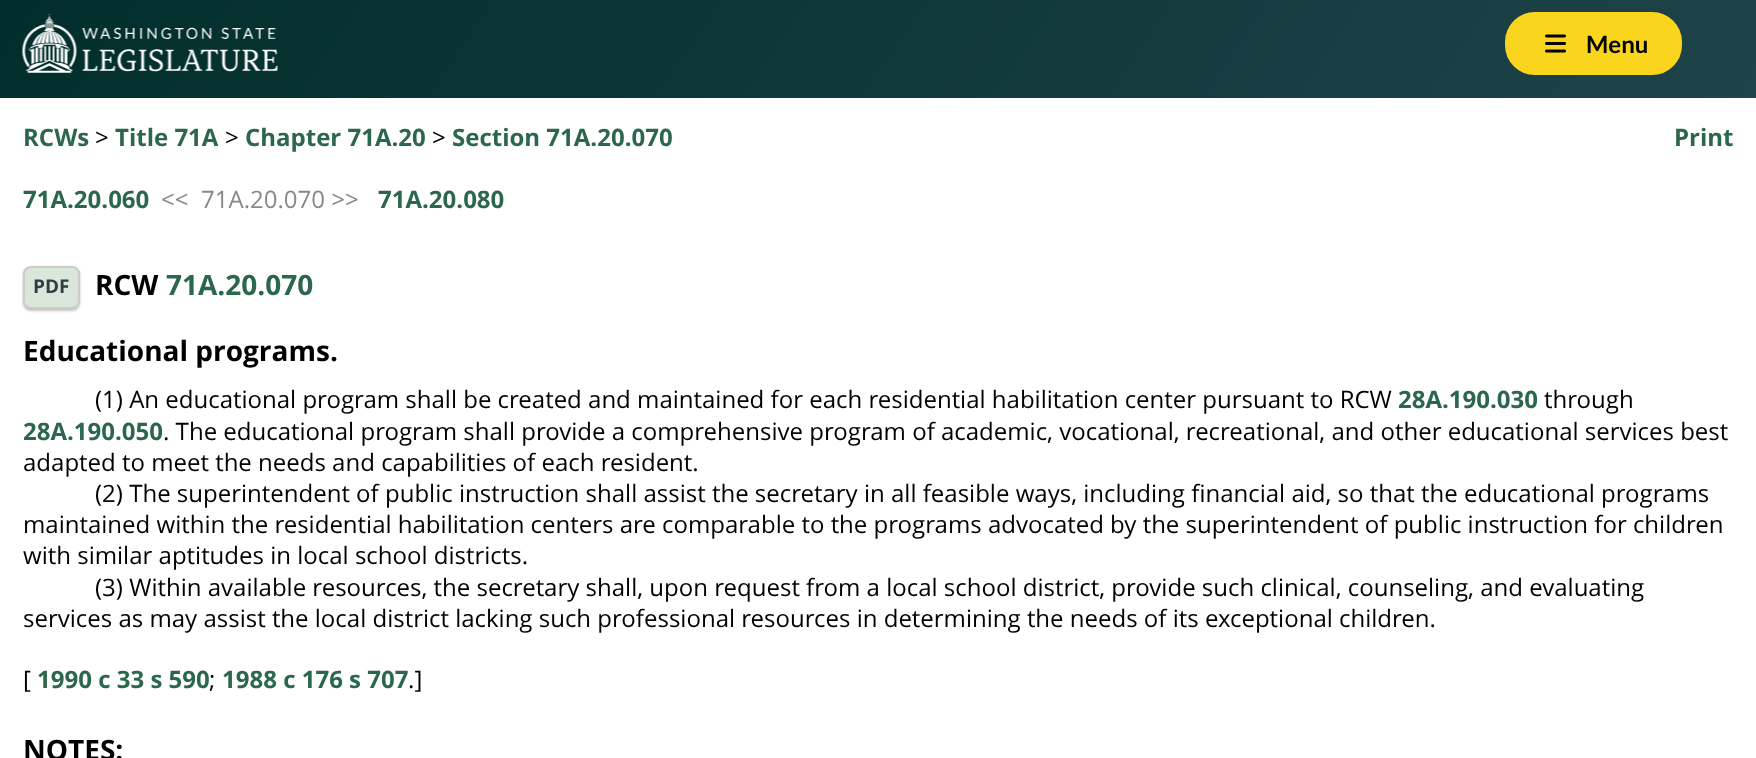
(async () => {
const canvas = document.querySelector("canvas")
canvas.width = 1756
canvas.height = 758
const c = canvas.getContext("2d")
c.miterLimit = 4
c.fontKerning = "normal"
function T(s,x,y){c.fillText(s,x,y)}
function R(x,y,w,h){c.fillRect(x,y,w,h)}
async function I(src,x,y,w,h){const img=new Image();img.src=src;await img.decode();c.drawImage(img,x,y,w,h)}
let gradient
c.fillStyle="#fff"
R(0,0,1756,758)
gradient = c.createLinearGradient(1504,471,252,-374)
gradient.addColorStop(0,"#1e434a")
gradient.addColorStop(1,"#012e2a")
c.fillStyle = gradient
R(0,0,1756,98)
await I("1.png",22,14,256,59)
c.fillStyle="#fad51d"
c.beginPath()
c.roundRect(1506.5,13.5,174,60,28.5)
c.fill()
c.strokeStyle="#fad51d"
c.lineWidth=3
c.stroke()
await I("2.png",1545,34,21,19)
c.font="bold 24px Lato"
c.fillStyle="#000"
T("Menu",1586,53)
c.font="bold 24px Open Sans"
c.fillStyle="#2b674d"
T("RCWs",23,146)
c.font="24px Open Sans"
c.fillStyle="#000"
T(">",95,146)
c.font="bold 24px Open Sans"
c.fillStyle="#2b674d"
T("Title 71A",115,146)
c.font="24px Open Sans"
c.fillStyle="#000"
T(">",225,146)
c.font="bold 24px Open Sans"
c.fillStyle="#2b674d"
T("Chapter 71A.20",245,146)
c.font="24px Open Sans"
c.fillStyle="#000"
T(">",432,146)
c.font="bold 24px Open Sans"
c.fillStyle="#2b674d"
T("Section 71A.20.070",452,146)
T("Print",1674,146)
T("71A.20.060",23,208)
c.font="24px Open Sans"
c.fillStyle="#888"
T("<<",161,208)
T("71A.20.070 >>",201,208)
c.font="bold 24px Open Sans"
c.fillStyle="#2b674d"
T("71A.20.080",378,208)
c.fillStyle="#3333334d"
c.filter="blur(1px)"
c.beginPath()
c.roundRect(23,267,57,44,8)
c.fill()
c.filter="none"
c.fillStyle="#dbe6db"
c.beginPath()
c.roundRect(24,267,55,41,7)
c.fill()
c.strokeStyle="#ccc"
c.lineWidth=2
c.stroke()
c.font="bold 19px Open Sans"
c.fillStyle="#2f3e46"
T("PDF",33,293)
c.font="bold 28px Open Sans"
c.fillStyle="#000"
T("RCW",95,295)
c.fillStyle="#2b674d"
T("71A.20.070",166,295)
c.fillStyle="#000"
T("Educational programs.",23,361)
c.font="24px Open Sans"
T("(1) An educational program shall be created and maintained for each residential habilitation center pursuant to RCW",95,408)
c.font="bold 24px Open Sans"
c.fillStyle="#2b674d"
T("28A.190.030",1398,408)
c.font="24px Open Sans"
c.fillStyle="#000"
T("through",1544,408)
c.font="bold 24px Open Sans"
c.fillStyle="#2b674d"
T("28A.190.050",23,440)
c.font="24px Open Sans"
c.fillStyle="#000"
T(". The educational program shall provide a comprehensive program of academic, vocational, recreational, and other educational services best",163,440)
T("adapted to meet the needs and capabilities of each resident.",23,471)
T("(2) The superintendent of public instruction shall assist the secretary in all feasible ways, including financial aid, so that the educational programs",95,502)
T("maintained within the residential habilitation centers are comparable to the programs advocated by the superintendent of public instruction for children",23,533)
T("with similar aptitudes in local school districts.",23,564)
T("(3) Within available resources, the secretary shall, upon request from a local school district, provide such clinical, counseling, and evaluating",95,596)
T("services as may assist the local district lacking such professional resources in determining the needs of its exceptional children.",23,627)
T("[",23,688)
c.font="bold 24px Open Sans"
c.fillStyle="#2b674d"
T("1990 c 33 s 590",37,688)
c.font="24px Open Sans"
c.fillStyle="#000"
T(";",209,688)
c.font="bold 24px Open Sans"
c.fillStyle="#2b674d"
T("1988 c 176 s 707",222,688)
c.font="24px Open Sans"
c.fillStyle="#000"
T(".]",408,688)
c.font="bold 28px Open Sans"
T("NOTES:",23,760)
})()
